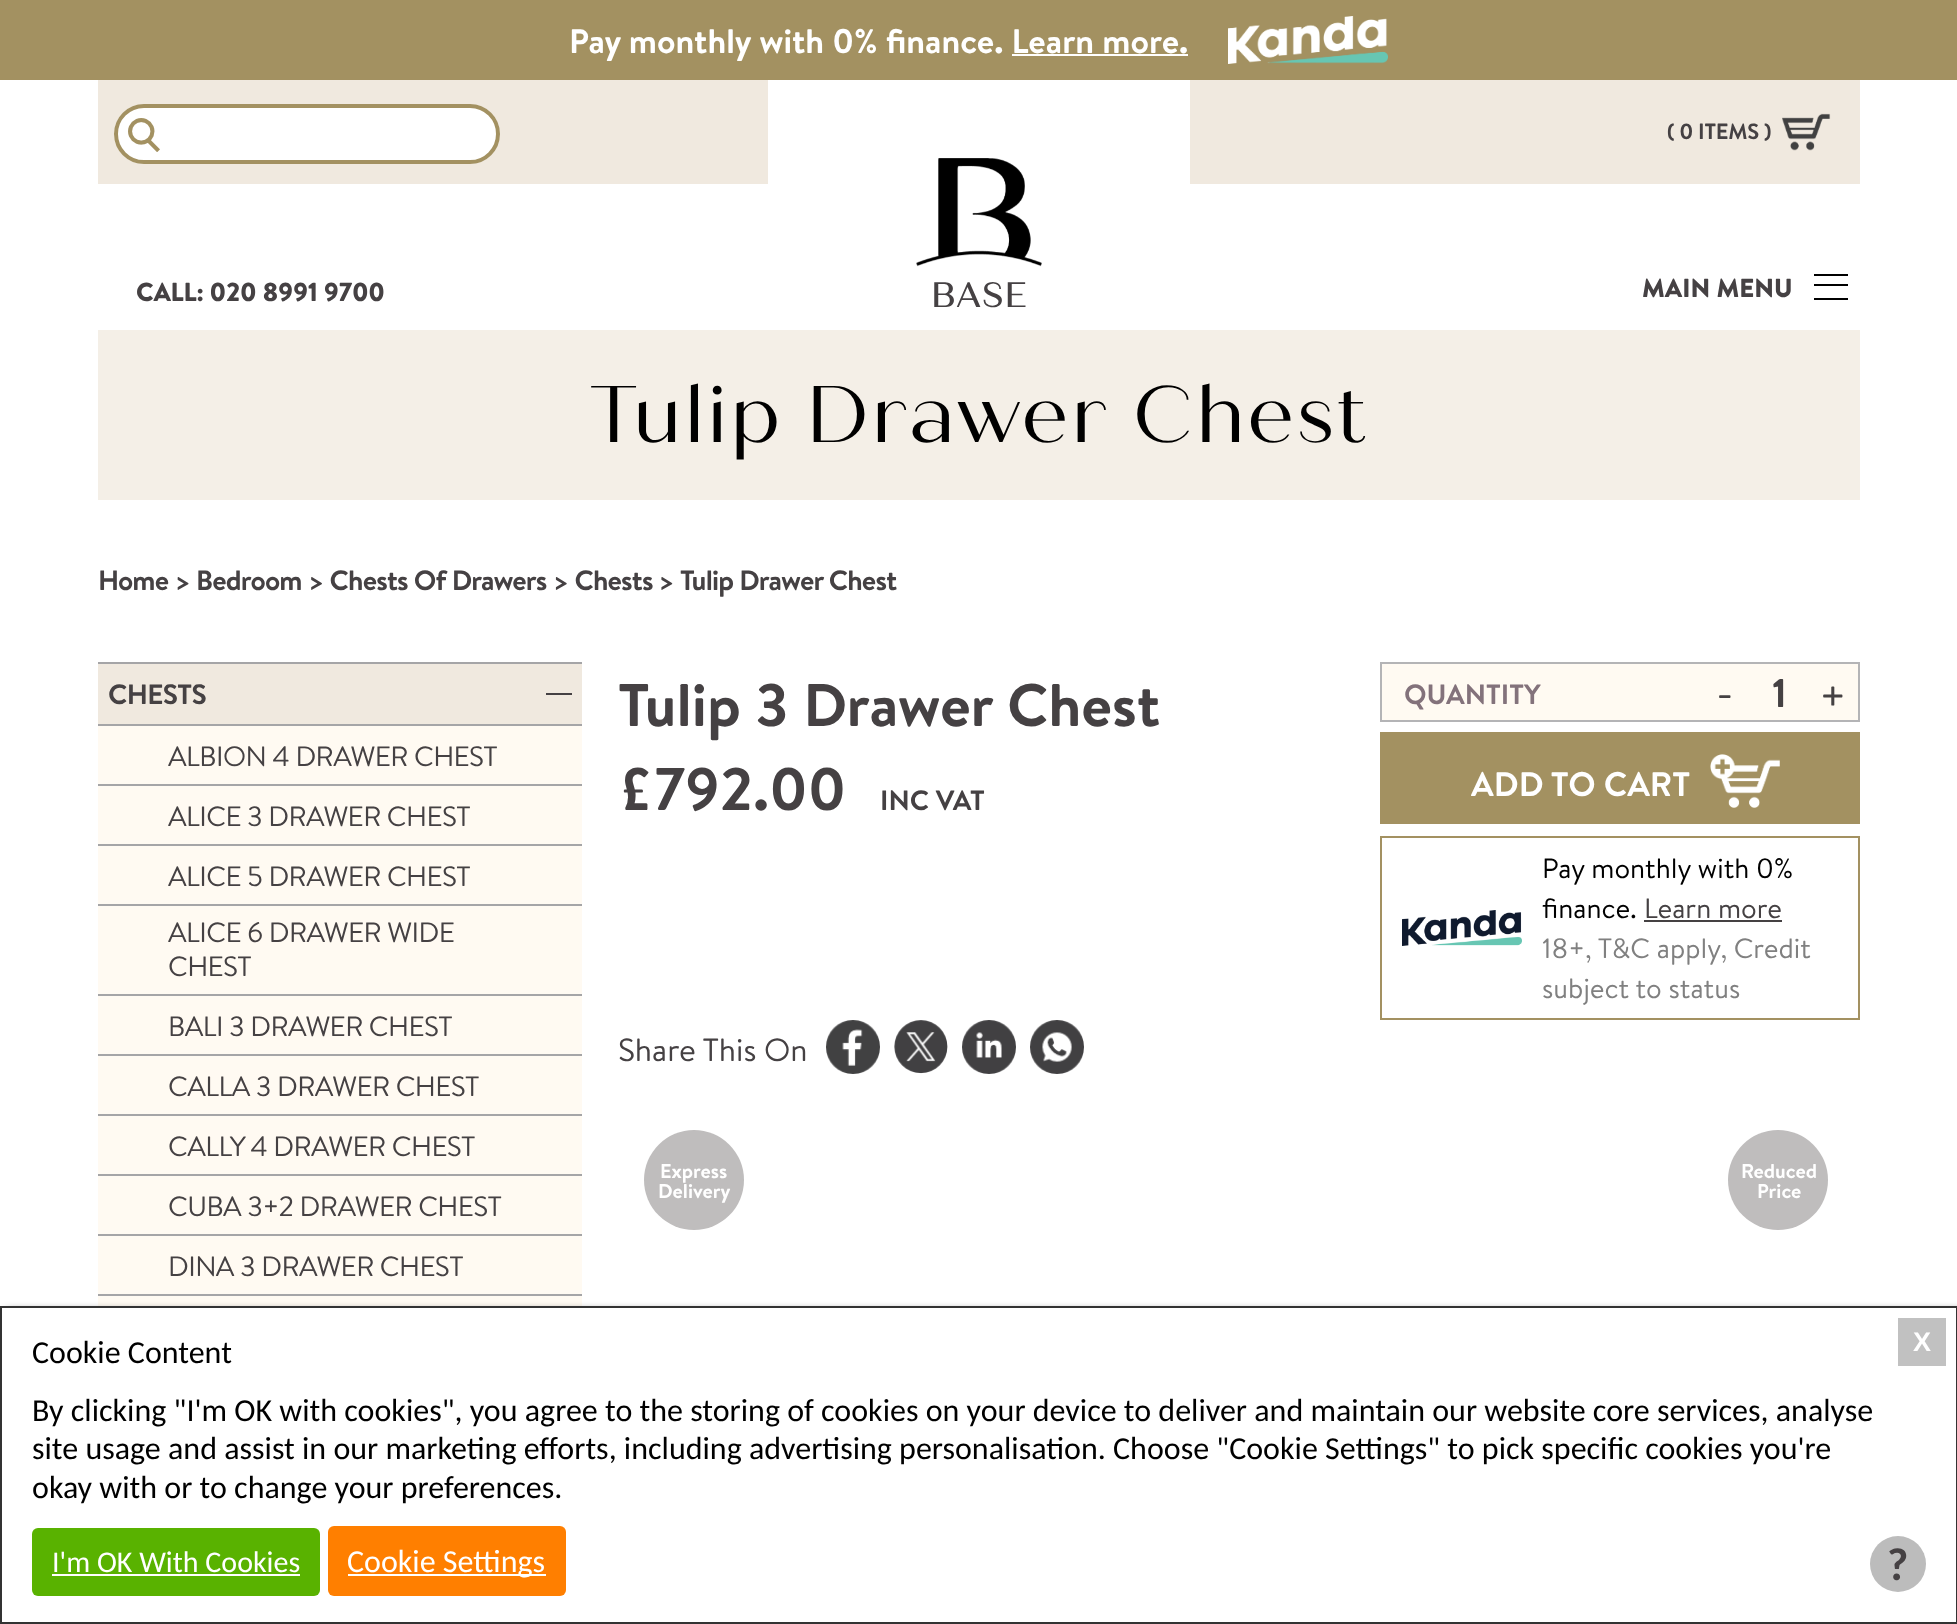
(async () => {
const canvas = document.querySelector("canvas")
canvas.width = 1957
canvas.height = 1624
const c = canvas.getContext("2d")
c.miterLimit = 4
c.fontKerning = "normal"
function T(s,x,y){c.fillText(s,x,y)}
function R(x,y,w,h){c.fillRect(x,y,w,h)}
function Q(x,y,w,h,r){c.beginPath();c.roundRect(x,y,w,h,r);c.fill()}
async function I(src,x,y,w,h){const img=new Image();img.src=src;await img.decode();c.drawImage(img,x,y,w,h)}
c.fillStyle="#fff"
R(0,0,1957,1624)
c.fillStyle="#a39161"
R(0,0,1957,80)
c.font="bold 34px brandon"
c.fillStyle="#fff"
T("Pay monthly with 0% finance. Learn more.",569,53)
R(1012,54,176,2)
await I("1.png",1228,16,160,48)
c.fillStyle="#f0e9df"
R(98,80,670,104)
c.fillStyle="#fff"
Q(114,104,386,60,30)
await I("2.png",128,118,32,34)
c.beginPath()
c.roundRect(116,106,382,56,28)
c.strokeStyle="#a39161"
c.lineWidth=4
c.stroke()
c.fillStyle="#f0e9df"
R(1190,80,670,104)
await I("3.png",1782,113,49,38)
c.letterSpacing="-0.25px"
c.font="bold 22px brandon"
c.fillStyle="#454143"
T("( 0 ITEMS )",1667,139)
c.font="900 26px brandon"
T("CALL: 020 8991 9700",136,301)
await I("4.png",916,158,126,109)
c.letterSpacing="2px"
c.font="bold 34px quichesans"
T("BASE",931,307)
c.letterSpacing="0px"
c.font="900 26px brandon"
T("MAIN MENU",1642,297)
c.fillStyle="#000"
R(1814,274,34,2)
R(1814,284,34,2)
R(1814,298,34,2)
c.fillStyle="#f4efe7"
R(98,330,1762,170)
c.letterSpacing="2px"
c.font="80px quichesans"
c.fillStyle="#000"
T("Tulip Drawer Chest",589,442)
c.letterSpacing="-0.8px"
c.font="bold 28px brandon"
c.fillStyle="#454143"
T("Home > Bedroom > Chests Of Drawers > Chests",98,590)
T(">",658,590)
T("Tulip Drawer Chest",680,590)
c.fillStyle="#f0e9df"
R(98,664,484,60)
c.fillStyle="#a5a5a7"
R(98,662,484,2)
c.letterSpacing="-0.6px"
c.fillStyle="#454143"
T("CHESTS",108,704)
R(546,693,26,2)
c.fillStyle="#fffaf2"
R(98,726,484,580)
c.fillStyle="#a5a5a7"
R(98,724,484,2)
c.font="28px brandon"
c.fillStyle="#454143"
T("ALBION 4 DRAWER CHEST",168,766)
c.fillStyle="#a5a5a7"
R(98,784,484,2)
c.fillStyle="#454143"
T("ALICE 3 DRAWER CHEST",168,826)
c.fillStyle="#a5a5a7"
R(98,844,484,2)
c.fillStyle="#454143"
T("ALICE 5 DRAWER CHEST",168,886)
c.fillStyle="#a5a5a7"
R(98,904,484,2)
c.fillStyle="#454143"
T("ALICE 6 DRAWER WIDE",168,942)
T("CHEST",168,976)
c.fillStyle="#a5a5a7"
R(98,994,484,2)
c.fillStyle="#454143"
T("BALI 3 DRAWER CHEST",168,1036)
c.fillStyle="#a5a5a7"
R(98,1054,484,2)
c.fillStyle="#454143"
T("CALLA 3 DRAWER CHEST",168,1096)
c.fillStyle="#a5a5a7"
R(98,1114,484,2)
c.fillStyle="#454143"
T("CALLY 4 DRAWER CHEST",168,1156)
c.fillStyle="#a5a5a7"
R(98,1174,484,2)
c.fillStyle="#454143"
T("CUBA 3+2 DRAWER CHEST",168,1216)
c.fillStyle="#a5a5a7"
R(98,1234,484,2)
c.fillStyle="#454143"
T("DINA 3 DRAWER CHEST",168,1276)
c.fillStyle="#a5a5a7"
R(98,1294,484,2)
c.letterSpacing="0px"
c.font="bold 60px brandon"
c.fillStyle="#454143"
T("Tulip 3 Drawer Chest",618,726)
T("£792.00",618,810)
c.font="bold 28px brandon"
T("INC VAT",880,810)
c.fillStyle="#fffaf2"
c.beginPath()
c.rect(1381,663,478,58)
c.fill()
c.strokeStyle="#b4b4b6"
c.lineWidth=2
c.stroke()
c.fillStyle="#83727b"
T("QUANTITY",1404,704)
c.font="46px brandon"
c.fillStyle="#454143"
T("-",1716,708)
c.font="bold 40px brandon"
T("1",1772,707)
c.font="46px brandon"
T("+",1819,712)
c.fillStyle="#a39161"
R(1380,732,480,92)
c.font="bold 34px brandon"
c.fillStyle="#fff"
T("ADD TO CART",1471,796)
await I("5.png",1710,754,70,54)
c.strokeStyle="#a39161"
c.strokeRect(1381,837,478,182)
await I("6.png",1402,910,120,36)
c.font="28px brandon"
c.fillStyle="#000"
T("Pay monthly with 0%",1542,878)
T("finance.",1542,918)
c.fillStyle="#454143"
T("Learn more",1644,918)
R(1644,920,138,2)
c.fillStyle="#808080"
T("18+, T&C apply, Credit",1542,958)
T("subject to status",1542,998)
c.font="32px brandon"
c.fillStyle="#454143"
T("Share This On",618,1061)
await I("7.png",826,1020,54,54)
await I("8.png",894,1020,54,54)
await I("9.png",962,1020,54,54)
await I("10.png",1030,1020,54,54)
c.fillStyle="#bfbdbd"
c.beginPath()
c.arc(694,1180,50,0,7)
c.fill()
c.font="bold 20px brandon"
c.fillStyle="#fff"
T("Express",660,1178)
T("Delivery",658,1198)
c.fillStyle="#bfbdbd"
c.beginPath()
c.arc(1778,1180,50,0,7)
c.fill()
c.fillStyle="#fff"
T("Reduced",1741,1178)
T("Price",1757,1198)
c.fillStyle="#000"
c.filter="blur(5px)"
c.beginPath()
c.rect(6,1312,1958,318)
c.fill()
c.filter="none"
c.fillStyle="#fff"
c.beginPath()
c.rect(1,1307,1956,316)
c.fill()
c.strokeStyle="#333"
c.stroke()
c.font="32px Carlito"
c.fillStyle="#000"
T("Cookie Content",32,1363)
c.fillStyle="#c1c1c1"
R(1898,1318,48,48)
c.font="bold 27px Liberation Sans"
c.fillStyle="#fff"
T("X",1913,1351)
c.font="32px Carlito"
c.fillStyle="#000"
T("By clicking \"I'm OK with cookies\", you agree to the storing of cookies on your device to deliver and maintain our website core services, analyse",32,1421)
T("site usage and assist in our marketing efforts, including advertising personalisation. Choose \"Cookie Settings\" to pick specific cookies you're",32,1459)
T("okay with or to change your preferences.",32,1498)
c.fillStyle="#59b200"
Q(32,1528,288,68,6)
c.font="30px Carlito"
c.fillStyle="#fff"
T("I'm OK With Cookies",52,1572)
R(52,1574,248,2)
c.fillStyle="#ff7f00"
Q(328,1526,238,70,6)
c.fillStyle="#fff"
R(348,1574,198,2)
c.font="32px Carlito"
T("Cookie Settings",347,1572)
c.fillStyle="#bcbcbc"
c.beginPath()
c.arc(1898,1564,28,0,7)
c.fill()
c.font="bold 46px Carlito"
c.fillStyle="#454143"
T("?",1887,1580)
})()
